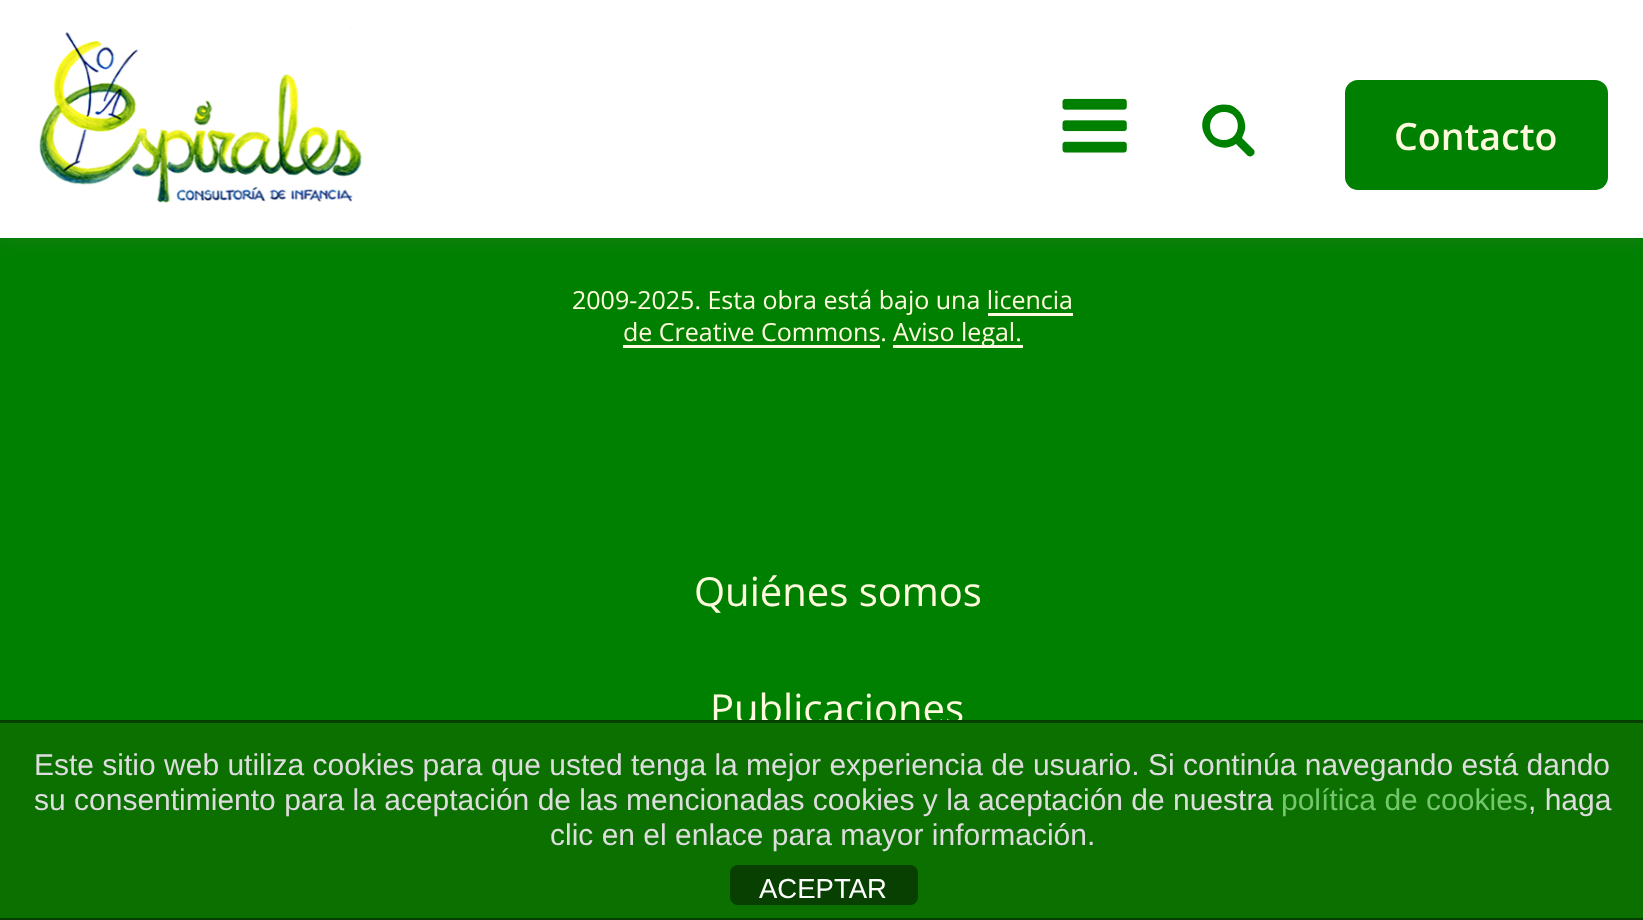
(async () => {
const canvas = document.querySelector("canvas")
canvas.width = 1643
canvas.height = 920
const c = canvas.getContext("2d")
c.miterLimit = 4
c.fontKerning = "normal"
function T(s,x,y){c.fillText(s,x,y)}
function R(x,y,w,h){c.fillRect(x,y,w,h)}
function Q(x,y,w,h,r){c.beginPath();c.roundRect(x,y,w,h,r);c.fill()}
async function I(src,x,y,w,h){const img=new Image();img.src=src;await img.decode();c.drawImage(img,x,y,w,h)}
let path
c.fillStyle="#008000"
R(0,0,1643,920)
c.fillStyle="#8080801a"
c.filter="blur(7.5px)"
c.beginPath()
c.rect(0,8,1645,237)
c.fill()
c.filter="none"
c.fillStyle="#fff"
R(0,0,1643,238)
await I("1.png",39,27,324,176)
await I("2.png",1062,98,65,55)
c.fillStyle="#008000"
path = new Path2D("M1253 149c4 3 0 9-5 7l-12-12c-23 15-48-20-24-36c5-4 12-4 18-3c8 3 14 10 15 19c1 5-1 9-3 14zm-29-9c18 0 19-28 0-28c-18 0-19 28 0 28z")
c.fill(path)
Q(1345,80,263,110,13)
c.font="600 37.5px Open Sans"
c.fillStyle="#fffadd"
T("Contacto",1394,150)
c.font="25px Open Sans"
T("2009-2025. Esta obra está bajo una licencia",572,309)
T("de Creative Commons.",623,341)
R(988,313,85,3)
R(623,345,257,3)
R(893,345,130,3)
T("Aviso legal.",893,341)
c.font="40px Open Sans"
T("Quiénes somos",694,606)
T("Publicaciones",710,723)
c.fillStyle="#0b7000"
R(0,723,1643,195)
c.fillStyle="#064000"
R(0,720,1643,3)
R(0,918,1643,2)
c.font="30px Liberation Sans"
c.fillStyle="#ddd"
T("Este sitio web utiliza cookies para que usted tenga la mejor experiencia de usuario. Si continúa navegando está dando",34,775)
T("su consentimiento para la aceptación de las mencionadas cookies y la aceptación de nuestra",34,810)
c.fillStyle="#75c76c"
T("política de cookies",1281,810)
c.fillStyle="#ddd"
T(", haga",1528,810)
T("clic en el enlace para mayor información.",550,845)
c.fillStyle="#074000"
Q(730,865,188,40,8)
c.font="27.5px Liberation Sans"
c.fillStyle="#fff"
T("ACEPTAR",759,898)
})()
